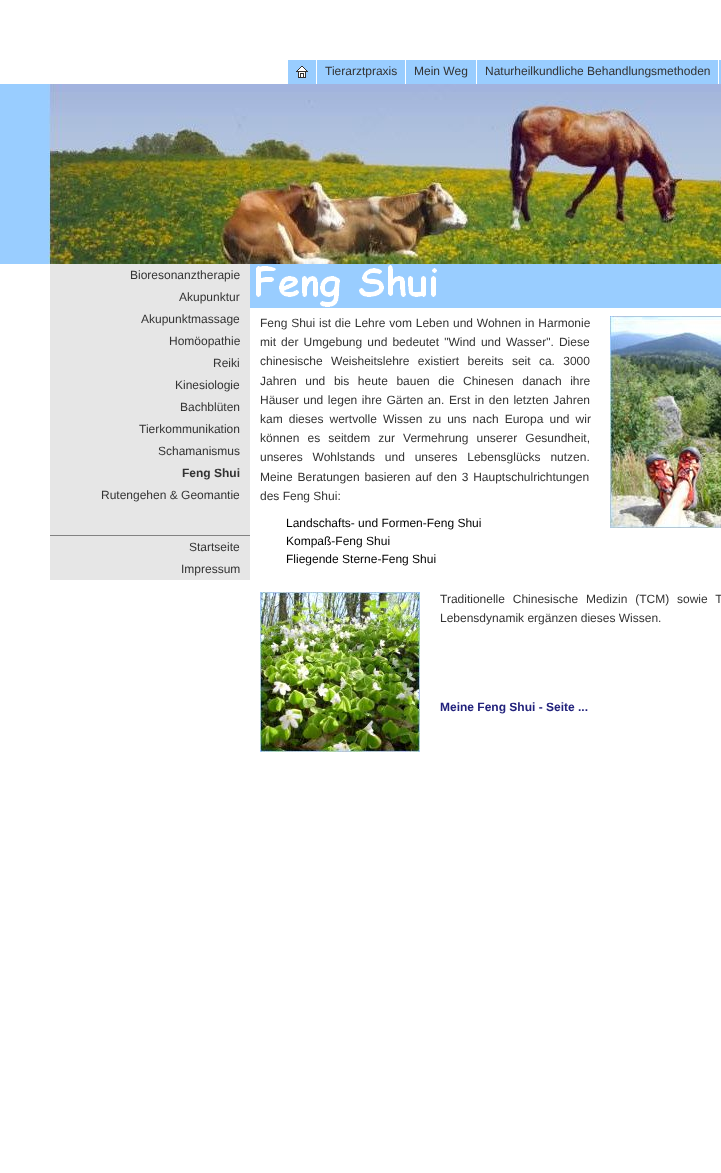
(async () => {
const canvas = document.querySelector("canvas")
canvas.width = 721
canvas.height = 1173
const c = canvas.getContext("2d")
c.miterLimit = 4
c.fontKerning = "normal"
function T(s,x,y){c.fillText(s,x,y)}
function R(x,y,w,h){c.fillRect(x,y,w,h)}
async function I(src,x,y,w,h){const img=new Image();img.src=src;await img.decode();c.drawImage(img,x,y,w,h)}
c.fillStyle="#fff"
R(0,0,721,1173)
c.fillStyle="#99cdff"
R(288,60,28,24)
R(719,60,2,24)
await I("1.png",296,66,12,12)
R(317,60,88,24)
c.font="12px Liberation Sans"
c.fillStyle="#333"
T("Tierarztpraxis",325,75)
c.fillStyle="#99cdff"
R(406,60,70,24)
c.fillStyle="#333"
T("Mein Weg",414,75)
c.fillStyle="#99cdff"
R(477,60,241,24)
c.fillStyle="#333"
T("Naturheilkundliche Behandlungsmethoden",485,75)
c.fillStyle="#99cdff"
R(0,84,47,180)
await I("2.png",47,84,674,180)
c.fillStyle="#e6e6e6"
R(50,264,200,316)
c.fillStyle="#333"
T("Bioresonanztherapie",130,279)
T("Akupunktur",179,301)
T("Akupunktmassage",141,323)
T("Homöopathie",169,345)
T("Reiki",213,367)
T("Kinesiologie",175,389)
T("Bachblüten",180,411)
T("Tierkommunikation",139,433)
T("Schamanismus",158,455)
c.font="bold 12px Liberation Sans"
T("Feng Shui",182,477)
c.font="12px Liberation Sans"
T("Rutengehen & Geomantie",101,499)
c.fillStyle="#828282"
R(50,535,200,1)
c.fillStyle="#333"
T("Startseite",189,551)
T("Impressum",181,573)
await I("3.png",250,264,471,44)
c.wordSpacing="0.5px"
T("Feng Shui ist die Lehre vom Leben und Wohnen in Harmonie",260,327)
c.wordSpacing="1.75px"
T("mit der Umgebung und bedeutet \"Wind und Wasser\". Diese",260,346)
c.wordSpacing="5px"
T("chinesische Weisheitslehre existiert bereits seit ca. 3000",260,365)
c.wordSpacing="5.25px"
T("Jahren und bis heute bauen die Chinesen danach ihre",260,385)
c.wordSpacing="1.25px"
T("Häuser und legen ihre Gärten an. Erst in den letzten Jahren",260,404)
c.wordSpacing="2.75px"
T("kam dieses wertvolle Wissen zu uns nach Europa und wir",260,423)
c.wordSpacing="4.75px"
T("können es seitdem zur Vermehrung unserer Gesundheit,",260,442)
c.wordSpacing="6.5px"
T("unseres Wohlstands und unseres Lebensglücks nutzen.",260,461)
c.wordSpacing="1.5px"
T("Meine Beratungen basieren auf den 3 Hauptschulrichtungen",260,481)
c.wordSpacing="0px"
T("des Feng Shui:",260,500)
await I("4.png",610,316,111,212)
c.fillStyle="#000"
T("Landschafts- und Formen-Feng Shui",286,527)
T("Kompaß-Feng Shui",286,545)
T("Fliegende Sterne-Feng Shui",286,563)
await I("5.png",260,592,160,160)
c.wordSpacing="4.5px"
c.fillStyle="#333"
T("Traditionelle Chinesische Medizin (TCM) sowie T",440,603)
c.wordSpacing="0px"
T("Lebensdynamik ergänzen dieses Wissen.",440,622)
c.font="bold 12px Liberation Sans"
c.fillStyle="#22227c"
T("Meine Feng Shui - Seite ...",440,711)
})()
